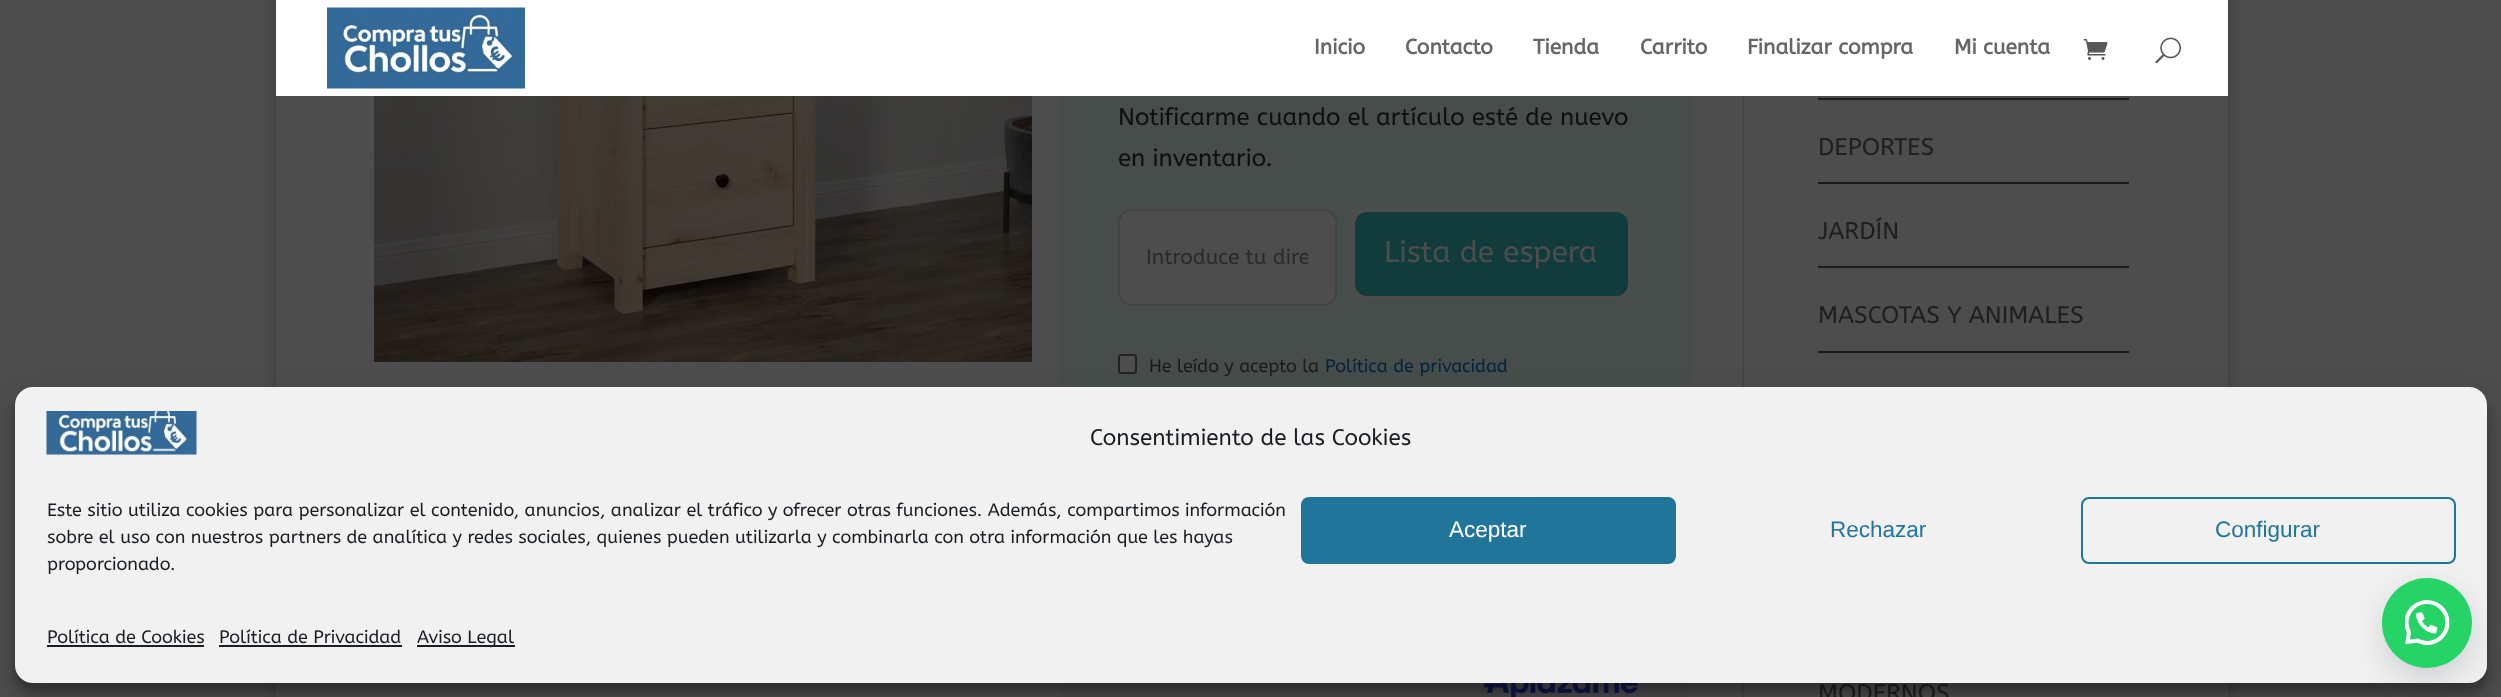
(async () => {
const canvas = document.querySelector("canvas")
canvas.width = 2501
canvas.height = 697
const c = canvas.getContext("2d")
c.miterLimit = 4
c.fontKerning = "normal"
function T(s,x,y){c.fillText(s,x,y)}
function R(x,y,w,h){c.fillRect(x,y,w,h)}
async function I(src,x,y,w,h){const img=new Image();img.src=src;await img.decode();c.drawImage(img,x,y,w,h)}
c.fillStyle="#4d4d4d"
R(0,0,2501,697)
c.fillStyle="#00000033"
c.filter="blur(7.5px)"
c.beginPath()
c.rect(276,-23,1952,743)
c.fill()
c.filter="none"
c.fillStyle="#fff"
R(276,0,1952,96)
await I("1.png",327,7,198,82)
c.font="bold 21px ABeeZee"
c.fillStyle="#666"
T("Inicio",1314,54)
T("Contacto",1405,54)
T("Tienda",1533,54)
T("Carrito",1640,54)
T("Finalizar compra",1747,54)
T("Mi cuenta",1954,54)
await I("2.png",2083,39,25,21)
await I("3.png",2155,37,26,27)
c.fillStyle="#4d4d4d"
R(276,96,1952,601)
c.fillStyle="#444"
R(1742,96,2,601)
await I("4.png",374,96,658,266)
c.fillStyle="#464d4a"
R(1058,96,633,291)
c.font="24px ABeeZee"
c.fillStyle="#0f0f0f"
T("Notificarme cuando el artículo esté de nuevo",1118,125)
T("en inventario.",1118,166)
c.fillStyle="#4d4d4d"
c.beginPath()
c.roundRect(1119,210,217,95,13)
c.fill()
c.strokeStyle="#434343"
c.lineWidth=2
c.stroke()
c.save()
c.beginPath()
c.rect(1146,245,162,25)
c.clip()
c.font="21px ABeeZee"
c.fillStyle="#2a2a2a"
T("Introduce tu dire",1146,264)
c.restore()
c.fillStyle="#113c3b"
c.beginPath()
c.roundRect(1353.5,210.5,276,87,13.5)
c.fill()
c.strokeStyle="#4d4d4d"
c.lineWidth=3
c.stroke()
c.font="30px ABeeZee"
c.fillStyle="#4d4d4d"
T("Lista de espera",1384,262)
c.beginPath()
c.roundRect(1119,355,17,18,2)
c.fill()
c.strokeStyle="#232323"
c.lineWidth=2
c.stroke()
c.font="18px ABeeZee"
c.fillStyle="#191b1a"
T("He leído y acepto la",1149,372)
c.fillStyle="#04223b"
T("Política de privacidad",1325,372)
c.fillStyle="#4a4a4d"
R(1061,683,627,14)
await I("5.png",1484,683,154,14)
c.fillStyle="#1b1b1b"
R(1818,98,311,2)
R(1818,182,311,2)
c.font="24px ABeeZee"
c.fillStyle="#1f1f1f"
T("DEPORTES",1818,155)
c.fillStyle="#1b1b1b"
R(1818,266,311,2)
c.fillStyle="#1f1f1f"
T("JARDÍN",1818,239)
c.fillStyle="#1b1b1b"
R(1818,351,311,2)
c.fillStyle="#1f1f1f"
T("MASCOTAS Y ANIMALES",1818,323)
T("MODERNOS",1818,701)
c.fillStyle="#0000003b"
c.filter="blur(4.5px)"
c.beginPath()
c.roundRect(15,396,2472,296,18)
c.fill()
c.filter="none"
c.fillStyle="#00000030"
c.filter="blur(15px)"
c.beginPath()
c.roundRect(15,402,2472,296,18)
c.fill()
c.filter="none"
c.fillStyle="#f1f1f1"
c.beginPath()
c.roundRect(16,388,2470,294,17)
c.fill()
c.strokeStyle="#f1f1f1"
c.stroke()
await I("6.png",46,411,151,44)
c.font="22.5px ABeeZee"
c.fillStyle="#191e23"
T("Consentimiento de las Cookies",1090,445)
c.font="18px ABeeZee"
T("Este sitio utiliza cookies para personalizar el contenido, anuncios, analizar el tráfico y ofrecer otras funciones. Además, compartimos información",47,516)
T("sobre el uso con nuestros partners de analítica y redes sociales, quienes pueden utilizarla y combinarla con otra información que les hayas",47,543)
T("proporcionado.",47,570)
c.fillStyle="#21759b"
c.beginPath()
c.roundRect(1302,498,373,65,7)
c.fill()
c.strokeStyle="#21759b"
c.stroke()
c.font="22.5px Liberation Sans"
c.fillStyle="#fff"
T("Aceptar",1449,537)
c.fillStyle="#21759b"
T("Rechazar",1830,537)
c.beginPath()
c.roundRect(2082,498,373,65,7)
c.stroke()
T("Configurar",2215,537)
c.font="18px ABeeZee"
c.fillStyle="#191e23"
T("Política de Cookies",47,643)
R(47,645,157,2)
T("Política de Privacidad",219,643)
R(219,645,183,2)
R(417,645,98,2)
T("Aviso Legal",417,643)
c.fillStyle="#2d3e4f4d"
c.filter="blur(19px)"
c.beginPath()
c.roundRect(2390,597,75,75,37.5)
c.fill()
c.filter="none"
c.fillStyle="#25d366"
c.beginPath()
c.arc(2427,623,45,0,7)
c.fill()
await I("7.png",2405,600,45,45)
})()
